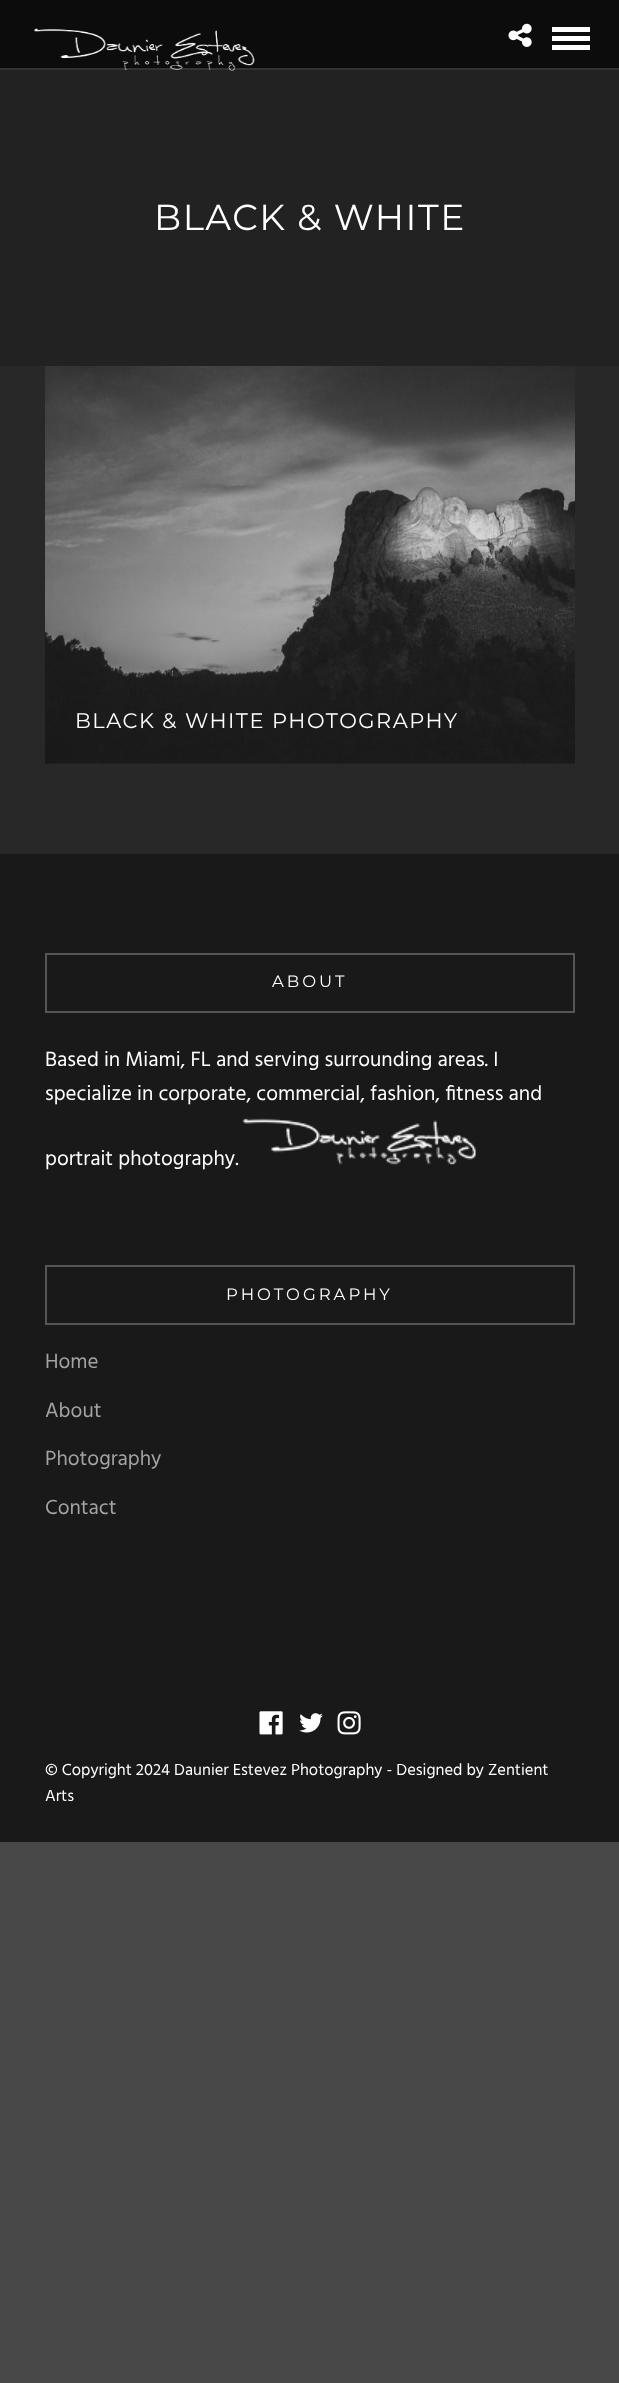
(async () => {
const canvas = document.querySelector("canvas")
canvas.width = 619
canvas.height = 2383
const c = canvas.getContext("2d")
c.miterLimit = 4
c.fontKerning = "normal"
function T(s,x,y){c.fillText(s,x,y)}
function R(x,y,w,h){c.fillRect(x,y,w,h)}
async function I(src,x,y,w,h){const img=new Image();img.src=src;await img.decode();c.drawImage(img,x,y,w,h)}
c.fillStyle="#484848"
R(0,0,619,2383)
c.fillStyle="#282828"
R(0,366,619,488)
c.fillStyle="#0c0c0c"
R(0,0,619,68)
c.fillStyle="#333"
R(0,68,619,2)
c.fillStyle="#222"
R(0,70,619,296)
await I("1.png",33,28,222,43)
await I("2.png",508,23,24,24)
c.fillStyle="#fff"
R(552,27,38,5)
R(552,36,38,5)
R(552,45,38,5)
c.letterSpacing="1.5px"
c.font="36px Montserrat"
T("BLACK & WHITE",154,230)
await I("3.png",45,366,530,398)
c.font="21px Montserrat"
T("BLACK & WHITE PHOTOGRAPHY",75,728)
c.fillStyle="#191919"
R(0,854,619,988)
c.strokeStyle="#555"
c.lineWidth=2
c.strokeRect(46,954,528,58)
c.letterSpacing="3px"
c.font="16.5px Montserrat"
c.fillStyle="#fff"
T("ABOUT",272,987)
c.letterSpacing="0px"
c.font="21px Hind"
T("Based in Miami, FL and serving surrounding areas. I",45,1066)
T("specialize in corporate, commercial, fashion, fitness and",45,1100)
T("portrait photography.",45,1165)
await I("4.png",242,1118,234,47)
c.strokeRect(46,1266,528,58)
c.letterSpacing="3px"
c.font="16.5px Montserrat"
T("PHOTOGRAPHY",226,1300)
c.letterSpacing="0px"
c.font="21px Hind"
c.fillStyle="#a3a3a3"
T("Home",45,1368)
T("About",45,1417)
T("Photography",45,1465)
T("Contact",45,1514)
await I("5.png",259,1711,24,24)
await I("6.png",299,1713,24,20)
await I("7.png",337,1711,24,24)
c.font="16.5px Hind"
c.fillStyle="#fff"
T("© Copyright 2024 Daunier Estevez Photography - Designed by Zentient",45,1775)
T("Arts",45,1801)
})()
